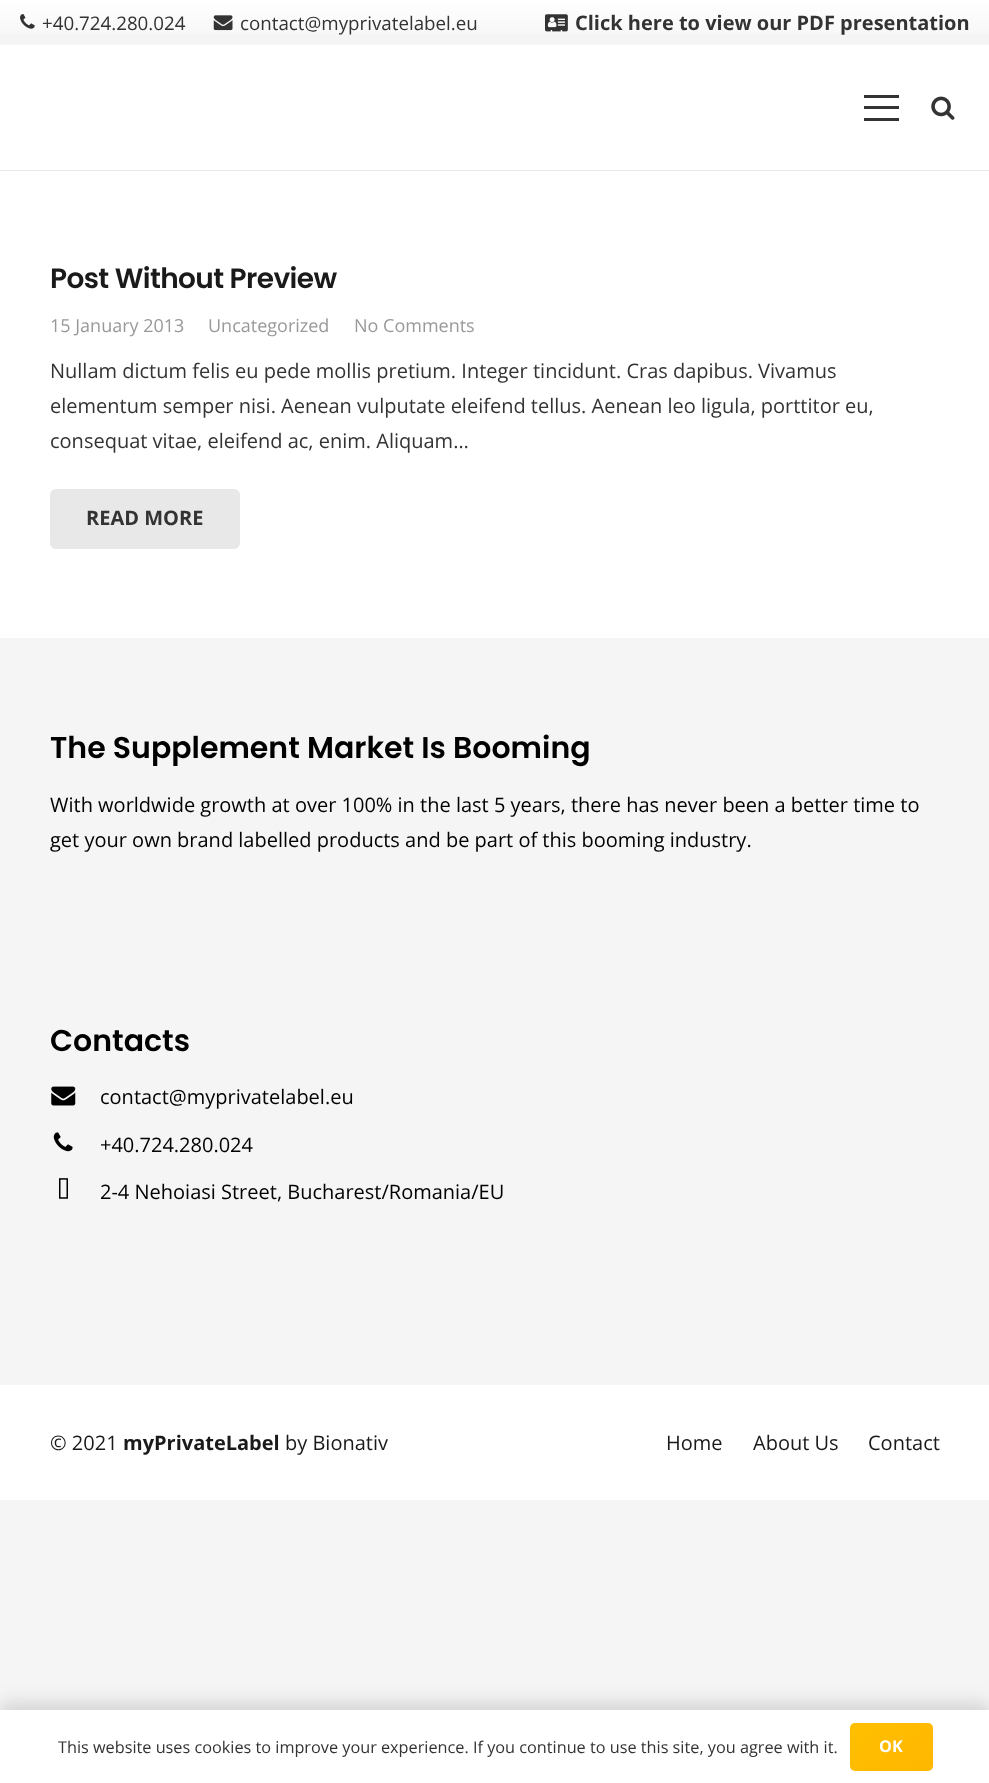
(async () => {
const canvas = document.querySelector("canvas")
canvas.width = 989
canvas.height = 1783
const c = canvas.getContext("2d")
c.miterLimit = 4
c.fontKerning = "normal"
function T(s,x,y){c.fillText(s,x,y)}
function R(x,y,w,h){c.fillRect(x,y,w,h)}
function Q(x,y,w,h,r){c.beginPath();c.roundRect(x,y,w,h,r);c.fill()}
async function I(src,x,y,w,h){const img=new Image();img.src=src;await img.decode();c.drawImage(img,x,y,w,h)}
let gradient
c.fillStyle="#f5f5f5"
R(0,0,989,1783)
c.fillStyle="#fff"
R(0,45,989,593)
gradient = c.createLinearGradient(495,45,495,0)
gradient.addColorStop(0,"#f5f5f5")
gradient.addColorStop(1,"#fff")
c.fillStyle = gradient
R(0,0,989,34)
await I("1.png",20,14,15,15)
c.font="18.75px Open Sans"
c.fillStyle="#333"
T("+40.724.280.024",42,30)
await I("2.png",213,15,20,16)
T("contact@myprivatelabel.eu",240,30)
await I("3.png",545,14,23,18)
c.font="bold 20px Open Sans"
T("Click here to view our PDF presentation",575,30)
c.fillStyle="#ebebeb"
R(0,170,989,1)
c.fillStyle="#333"
R(864,106,35,3)
R(864,95,35,3)
R(864,118,35,3)
await I("4.png",931,96,24,24)
c.letterSpacing="-0.6px"
c.font="600 28px Poppins"
c.fillStyle="#1a1a1a"
T("Post Without Preview",50,288)
c.letterSpacing="0px"
c.font="18px Open Sans"
c.fillStyle="#999"
T("15 January 2013",50,332)
T("Uncategorized",208,332)
T("No Comments",354,332)
c.font="20px Open Sans"
c.fillStyle="#333"
T("Nullam dictum felis eu pede mollis pretium. Integer tincidunt. Cras dapibus. Vivamus",50,378)
T("elementum semper nisi. Aenean vulputate eleifend tellus. Aenean leo ligula, porttitor eu,",50,413)
T("consequat vitae, eleifend ac, enim. Aliquam…",50,448)
c.fillStyle="#e8e8e8"
Q(50,489,190,60,6)
c.font="bold 20px Open Sans"
c.fillStyle="#333"
T("READ MORE",86,525)
c.fillStyle="#fff"
R(0,1385,989,115)
c.font="600 30px Poppins"
c.fillStyle="#000"
T("The Supplement Market Is Booming",50,758)
c.font="20px Open Sans"
T("With worldwide growth at over 100% in the last 5 years, there has never been a better time to",50,812)
T("get your own brand labelled products and be part of this booming industry.",50,847)
c.font="600 30px Poppins"
T("Contacts",50,1051)
await I("5.png",51,1086,25,20)
c.font="20px Open Sans"
T("contact@myprivatelabel.eu",100,1104)
await I("6.png",53,1132,20,20)
T("+40.724.280.024",100,1152)
await I("7.png",59,1178,9,21)
T("2-4 Nehoiasi Street, Bucharest/Romania/EU",100,1199)
c.fillStyle="#1a1a1a"
T("© 2021",50,1450)
c.font="bold 20px Open Sans"
T("myPrivateLabel",123,1450)
c.font="20px Open Sans"
T("by Bionativ",285,1450)
T("Home",666,1450)
T("About Us",753,1450)
T("Contact",868,1450)
c.fillStyle="#00000026"
c.filter="blur(9.5px)"
c.beginPath()
c.rect(0,1704,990,74)
c.fill()
c.filter="none"
c.fillStyle="#fff"
R(0,1710,989,73)
c.font="16.25px Open Sans"
c.fillStyle="#333"
T("This website uses cookies to improve your experience. If you continue to use this site, you agree with it.",58,1753)
gradient = c.createLinearGradient(862,1712,920,1781)
gradient.addColorStop(0,"#ffbf00")
gradient.addColorStop(1,"#ffb700")
c.fillStyle = gradient
Q(850,1723,83,48,5)
c.font="bold 16.25px Open Sans"
c.fillStyle="#fff"
T("OK",879,1752)
})()
